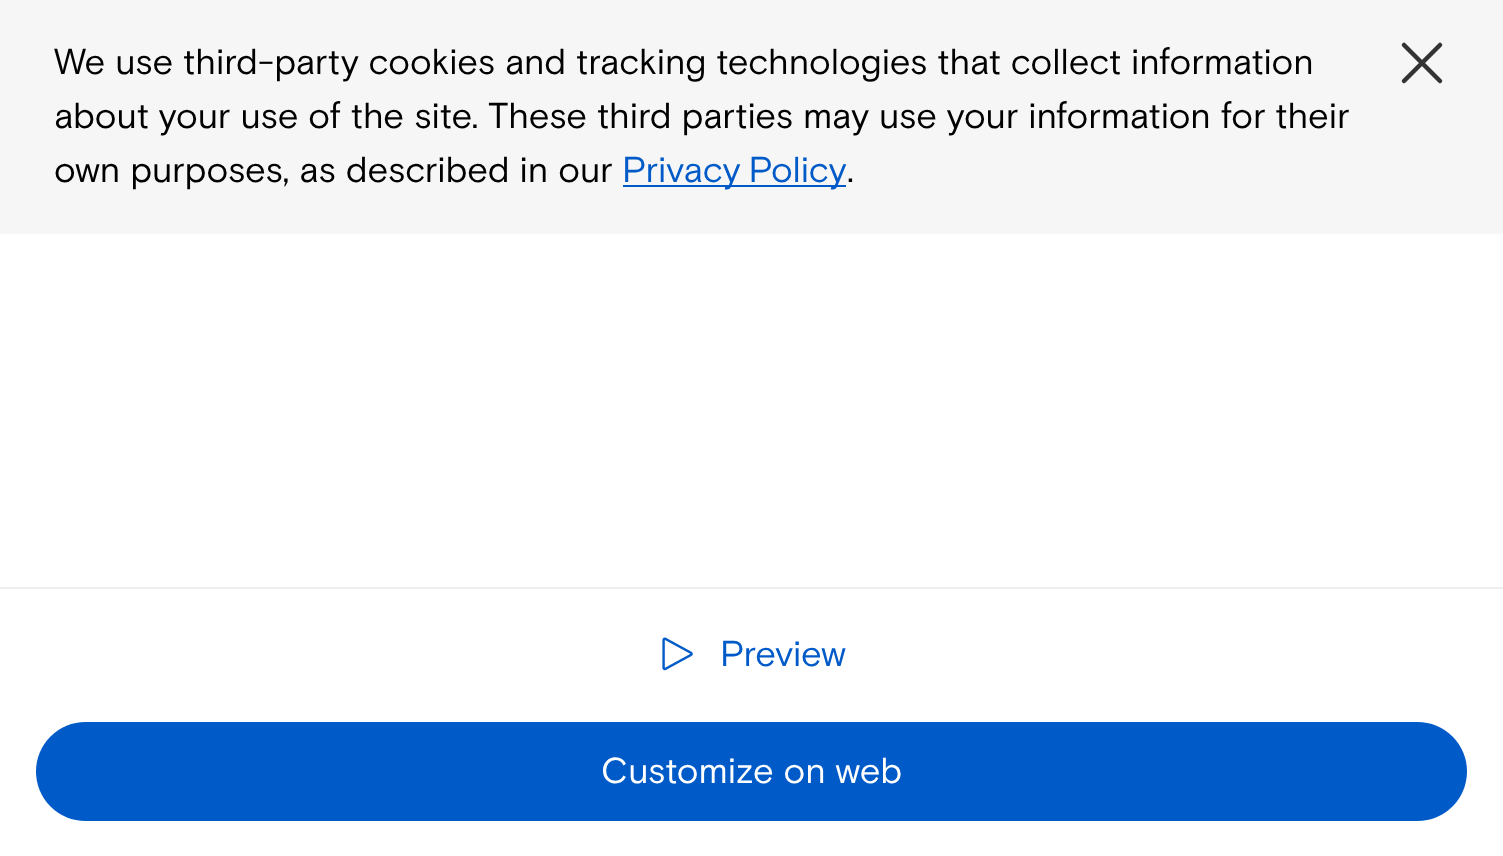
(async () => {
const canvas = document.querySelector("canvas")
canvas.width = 1503
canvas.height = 856
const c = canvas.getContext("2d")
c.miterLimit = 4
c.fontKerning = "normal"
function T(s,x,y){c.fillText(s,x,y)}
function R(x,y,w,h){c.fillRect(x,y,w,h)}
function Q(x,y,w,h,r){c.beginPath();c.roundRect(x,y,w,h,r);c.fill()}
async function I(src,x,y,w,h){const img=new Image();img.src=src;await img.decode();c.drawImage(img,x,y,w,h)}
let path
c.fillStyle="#fff"
R(0,0,1503,856)
c.fillStyle="#f6f6f6"
R(0,0,1503,234)
c.font="36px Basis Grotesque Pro"
c.fillStyle="#000"
T("We use third-party cookies and tracking technologies that collect information",54,74)
T("about your use of the site. These third parties may use your information for their",54,128)
T("own purposes, as described in our",54,182)
c.fillStyle="#005ac8"
R(623,185,223,2)
c.wordSpacing="-2px"
T("Privacy Policy",622,182)
c.wordSpacing="0px"
c.fillStyle="#000"
T(".",847,182)
path = new Path2D("M1404 81l36-36m-36 0l36 36")
c.strokeStyle="#333"
c.lineWidth=4.5
c.lineCap="round"
c.lineJoin="round"
c.stroke(path)
c.fillStyle="#eee"
R(0,587,1503,2)
await I("1.png",662,637,31,34)
c.fillStyle="#005ac8"
T("Preview",720,666)
Q(36,722,1431,99,49.5)
c.fillStyle="#fff"
T("Customize on web",601,783)
})()
